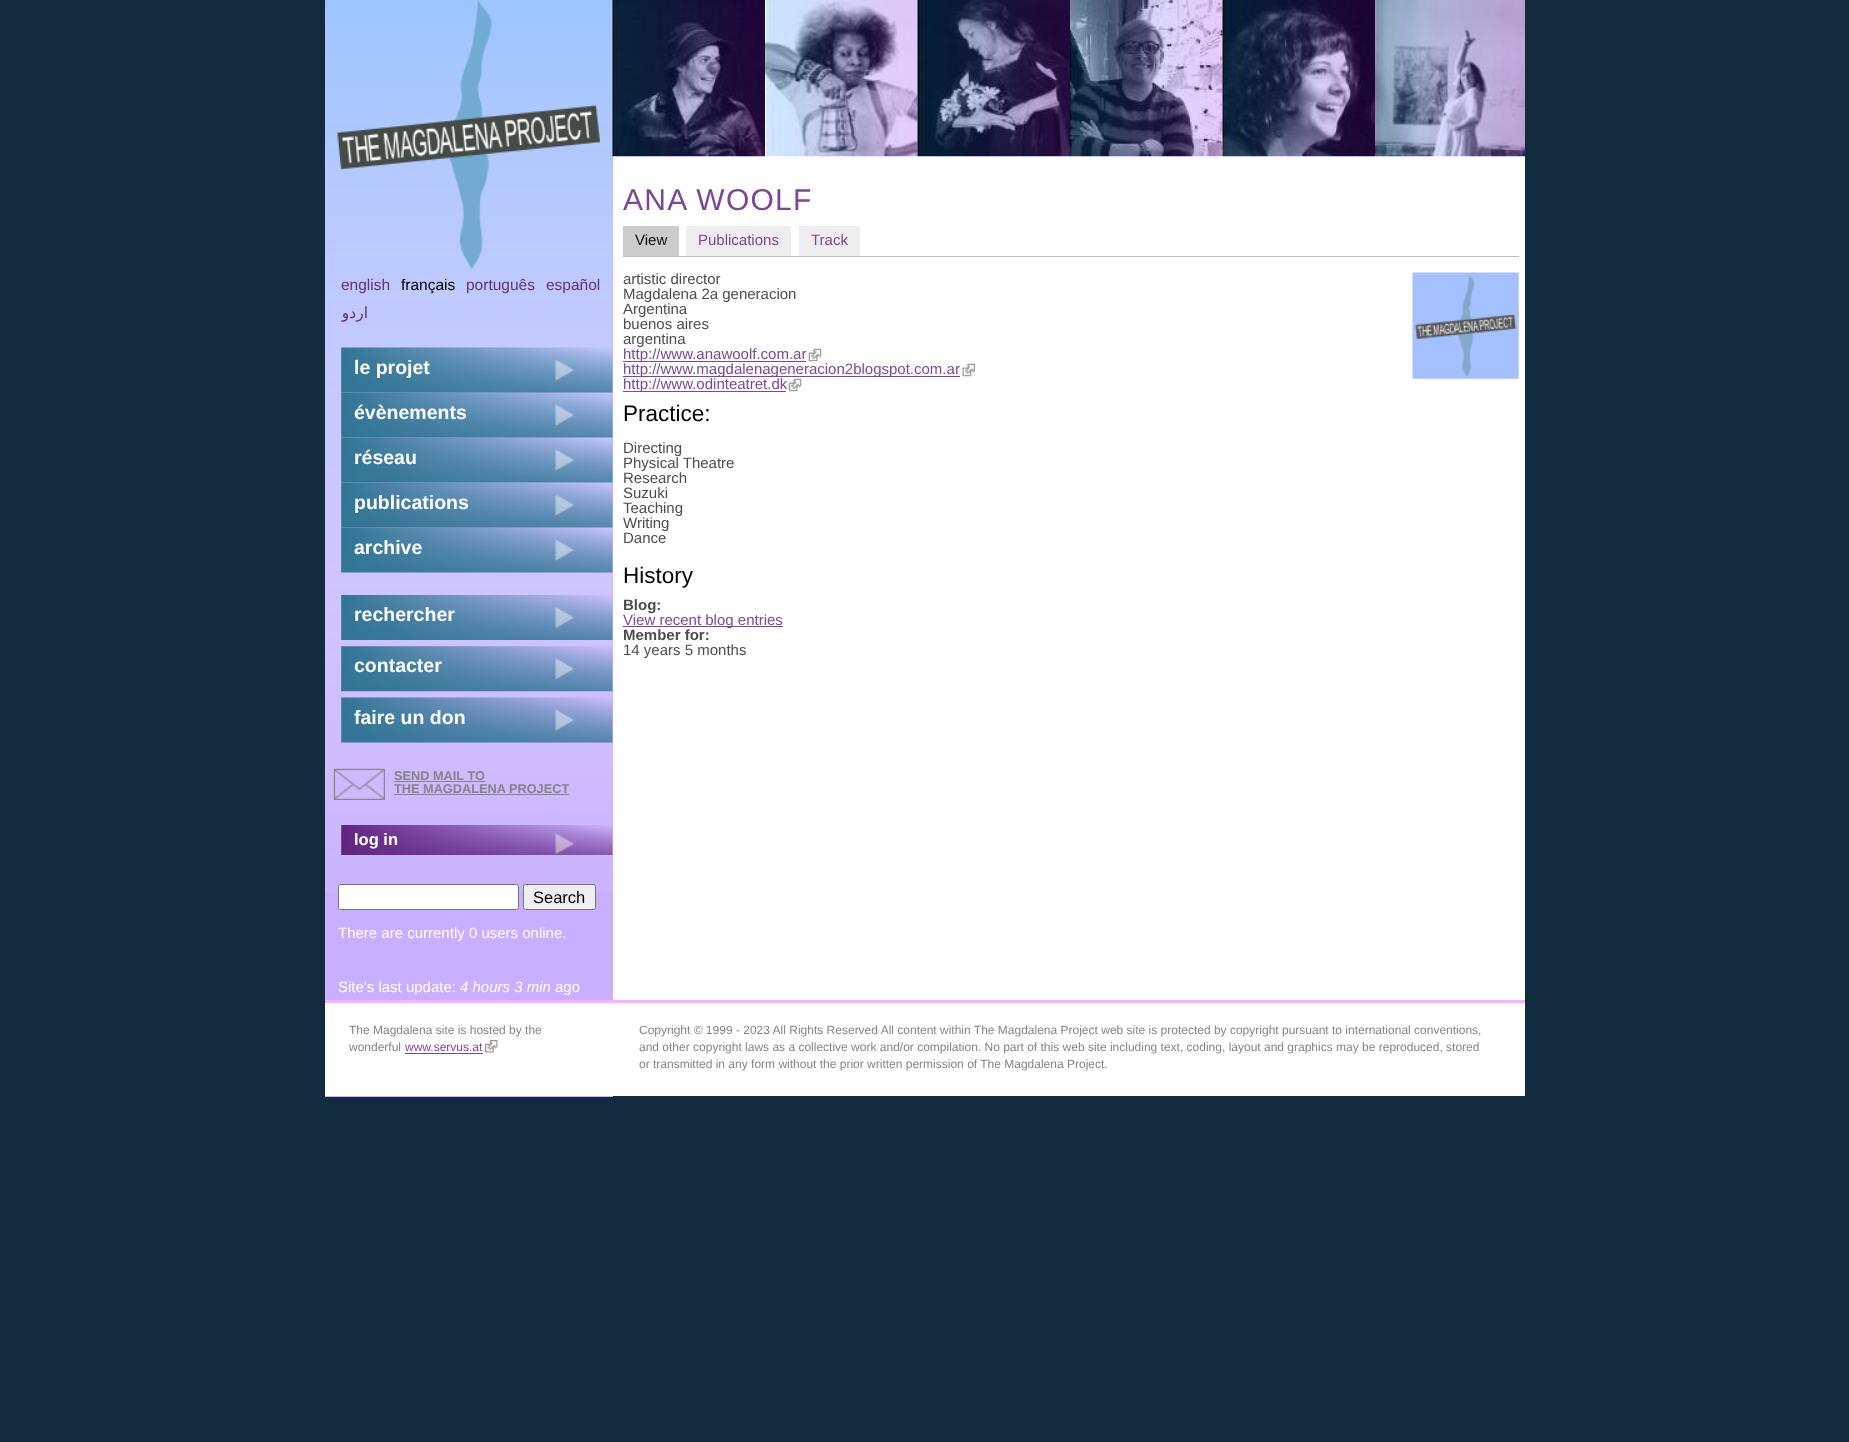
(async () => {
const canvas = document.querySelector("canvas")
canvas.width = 1849
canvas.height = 1442
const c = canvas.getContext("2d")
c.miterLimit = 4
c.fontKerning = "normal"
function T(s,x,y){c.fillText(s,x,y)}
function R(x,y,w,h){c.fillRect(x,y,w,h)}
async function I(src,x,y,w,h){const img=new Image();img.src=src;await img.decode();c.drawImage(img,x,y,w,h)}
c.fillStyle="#122b3f"
R(0,0,1849,1442)
c.fillStyle="#fff"
R(613,0,912,1000)
c.fillStyle="#c8afff"
R(325,0,288,1097)
await I("1.png",325,0,288,893)
await I("2.png",337,0,263,269)
await I("3.png",612,0,153,157)
await I("4.png",765,0,153,157)
await I("5.png",917,0,153,157)
await I("6.png",1070,0,153,157)
await I("7.png",1222,0,153,157)
await I("8.png",1375,0,150,157)
c.font="15.5px Liberation Sans"
c.fillStyle="#662d85"
T("english",341,290)
c.fillStyle="#000"
T("français",401,290)
c.fillStyle="#662d85"
T("português",466,290)
T("español",546,290)
c.direction="rtl"
c.font="15.5px DejaVu Sans"
T("اردو",368,318)
await I("9.png",341,347,272,46)
c.direction="ltr"
c.font="bold 19.5px Liberation Sans"
c.fillStyle="#fff"
T("le projet",354,374)
await I("10.png",341,392,272,46)
T("évènements",354,419)
await I("11.png",341,437,272,46)
T("réseau",354,464)
await I("12.png",341,482,272,46)
T("publications",354,509)
await I("13.png",341,527,272,46)
T("archive",354,554)
await I("14.png",341,595,272,45)
T("rechercher",354,621)
await I("15.png",341,646,272,46)
T("contacter",354,672)
await I("16.png",341,697,272,46)
T("faire un don",354,724)
await I("17.png",333,768,52,32)
c.font="bold 12.75px Liberation Sans"
c.fillStyle="#868585"
T("SEND MAIL TO",394,780)
R(394,781,91,1)
T("THE MAGDALENA PROJECT",394,793)
R(394,794,175,1)
await I("18.png",341,825,272,30)
c.font="bold 16.5px Liberation Sans"
c.fillStyle="#fff"
T("log in",354,845)
c.letterSpacing="1.25px"
c.font="30px Liberation Sans"
c.fillStyle="#7b4994"
T("ANA WOOLF",623,210)
c.fillStyle="#bbb"
R(623,256,896,1)
c.fillStyle="#ccc"
R(623,226,56,30)
c.letterSpacing="0px"
c.font="15px Liberation Sans"
c.fillStyle="#000"
T("View",635,245)
c.fillStyle="#eee"
R(686,226,105,30)
c.fillStyle="#7b4994"
T("Publications",698,245)
c.fillStyle="#eee"
R(799,226,61,30)
c.fillStyle="#7b4994"
T("Track",811,245)
c.fillStyle="#4d4d4d"
T("artistic director",623,284)
await I("19.png",1412,272,107,107)
T("Magdalena 2a generacion",623,299)
T("Argentina",623,314)
T("buenos aires",623,329)
T("argentina",623,344)
c.fillStyle="#7b4994"
R(623,361,183,1)
T("http://www.anawoolf.com.ar",623,359)
await I("20.png",808,348,14,14)
R(623,376,337,1)
T("http://www.magdalenageneracion2blogspot.com.ar",623,374)
await I("21.png",962,363,13,14)
R(623,391,163,1)
T("http://www.odinteatret.dk",623,389)
await I("22.png",788,378,14,14)
c.font="22.5px Liberation Sans"
c.fillStyle="#000"
T("Practice:",623,421)
c.font="15px Liberation Sans"
c.fillStyle="#4d4d4d"
T("Directing",623,453)
T("Physical Theatre",623,468)
T("Research",623,483)
T("Suzuki",623,498)
T("Teaching",623,513)
T("Writing",623,528)
T("Dance",623,543)
c.font="22.5px Liberation Sans"
c.fillStyle="#000"
T("History",623,583)
c.font="bold 15px Liberation Sans"
c.fillStyle="#4d4d4d"
T("Blog:",623,610)
c.fillStyle="#7b4994"
R(623,626,160,1)
c.font="15px Liberation Sans"
T("View recent blog entries",623,625)
c.font="bold 15px Liberation Sans"
c.fillStyle="#4d4d4d"
T("Member for:",623,640)
c.font="15px Liberation Sans"
T("14 years 5 months",623,655)
c.fillStyle="#fff"
c.beginPath()
c.roundRect(338.5,884.5,180,25,2)
c.fill()
c.strokeStyle="#767676"
c.stroke()
c.fillStyle="#efefef"
c.beginPath()
c.roundRect(523.5,884.5,72,25,2)
c.fill()
c.stroke()
c.font="16.5px Liberation Sans"
c.fillStyle="#000"
T("Search",533,903)
c.font="15px Liberation Sans"
c.fillStyle="#fff"
T("There are currently 0 users online.",338,938)
T("Site's last update:",338,992)
c.font="italic 15px Liberation Sans"
T("4 hours 3 min",460,992)
c.font="15px Liberation Sans"
T("ago",555,992)
R(325,1003,1200,93)
c.fillStyle="#ffabff"
R(325,1000,1200,3)
c.font="12px Liberation Sans"
c.fillStyle="#868585"
T("The Magdalena site is hosted by the",349,1034)
T("wonderful",349,1051)
c.fillStyle="#7b4994"
T("www.servus.at",405,1051)
R(405,1053,78,1)
await I("23.png",485,1040,13,13)
c.fillStyle="#868585"
T("Copyright © 1999 - 2023 All Rights Reserved All content within The Magdalena Project web site is protected by copyright pursuant to international conventions,",639,1034)
T("and other copyright laws as a collective work and/or compilation. No part of this web site including text, coding, layout and graphics may be reproduced, stored",639,1051)
T("or transmitted in any form without the prior written permission of The Magdalena Project.",639,1068)
})()
